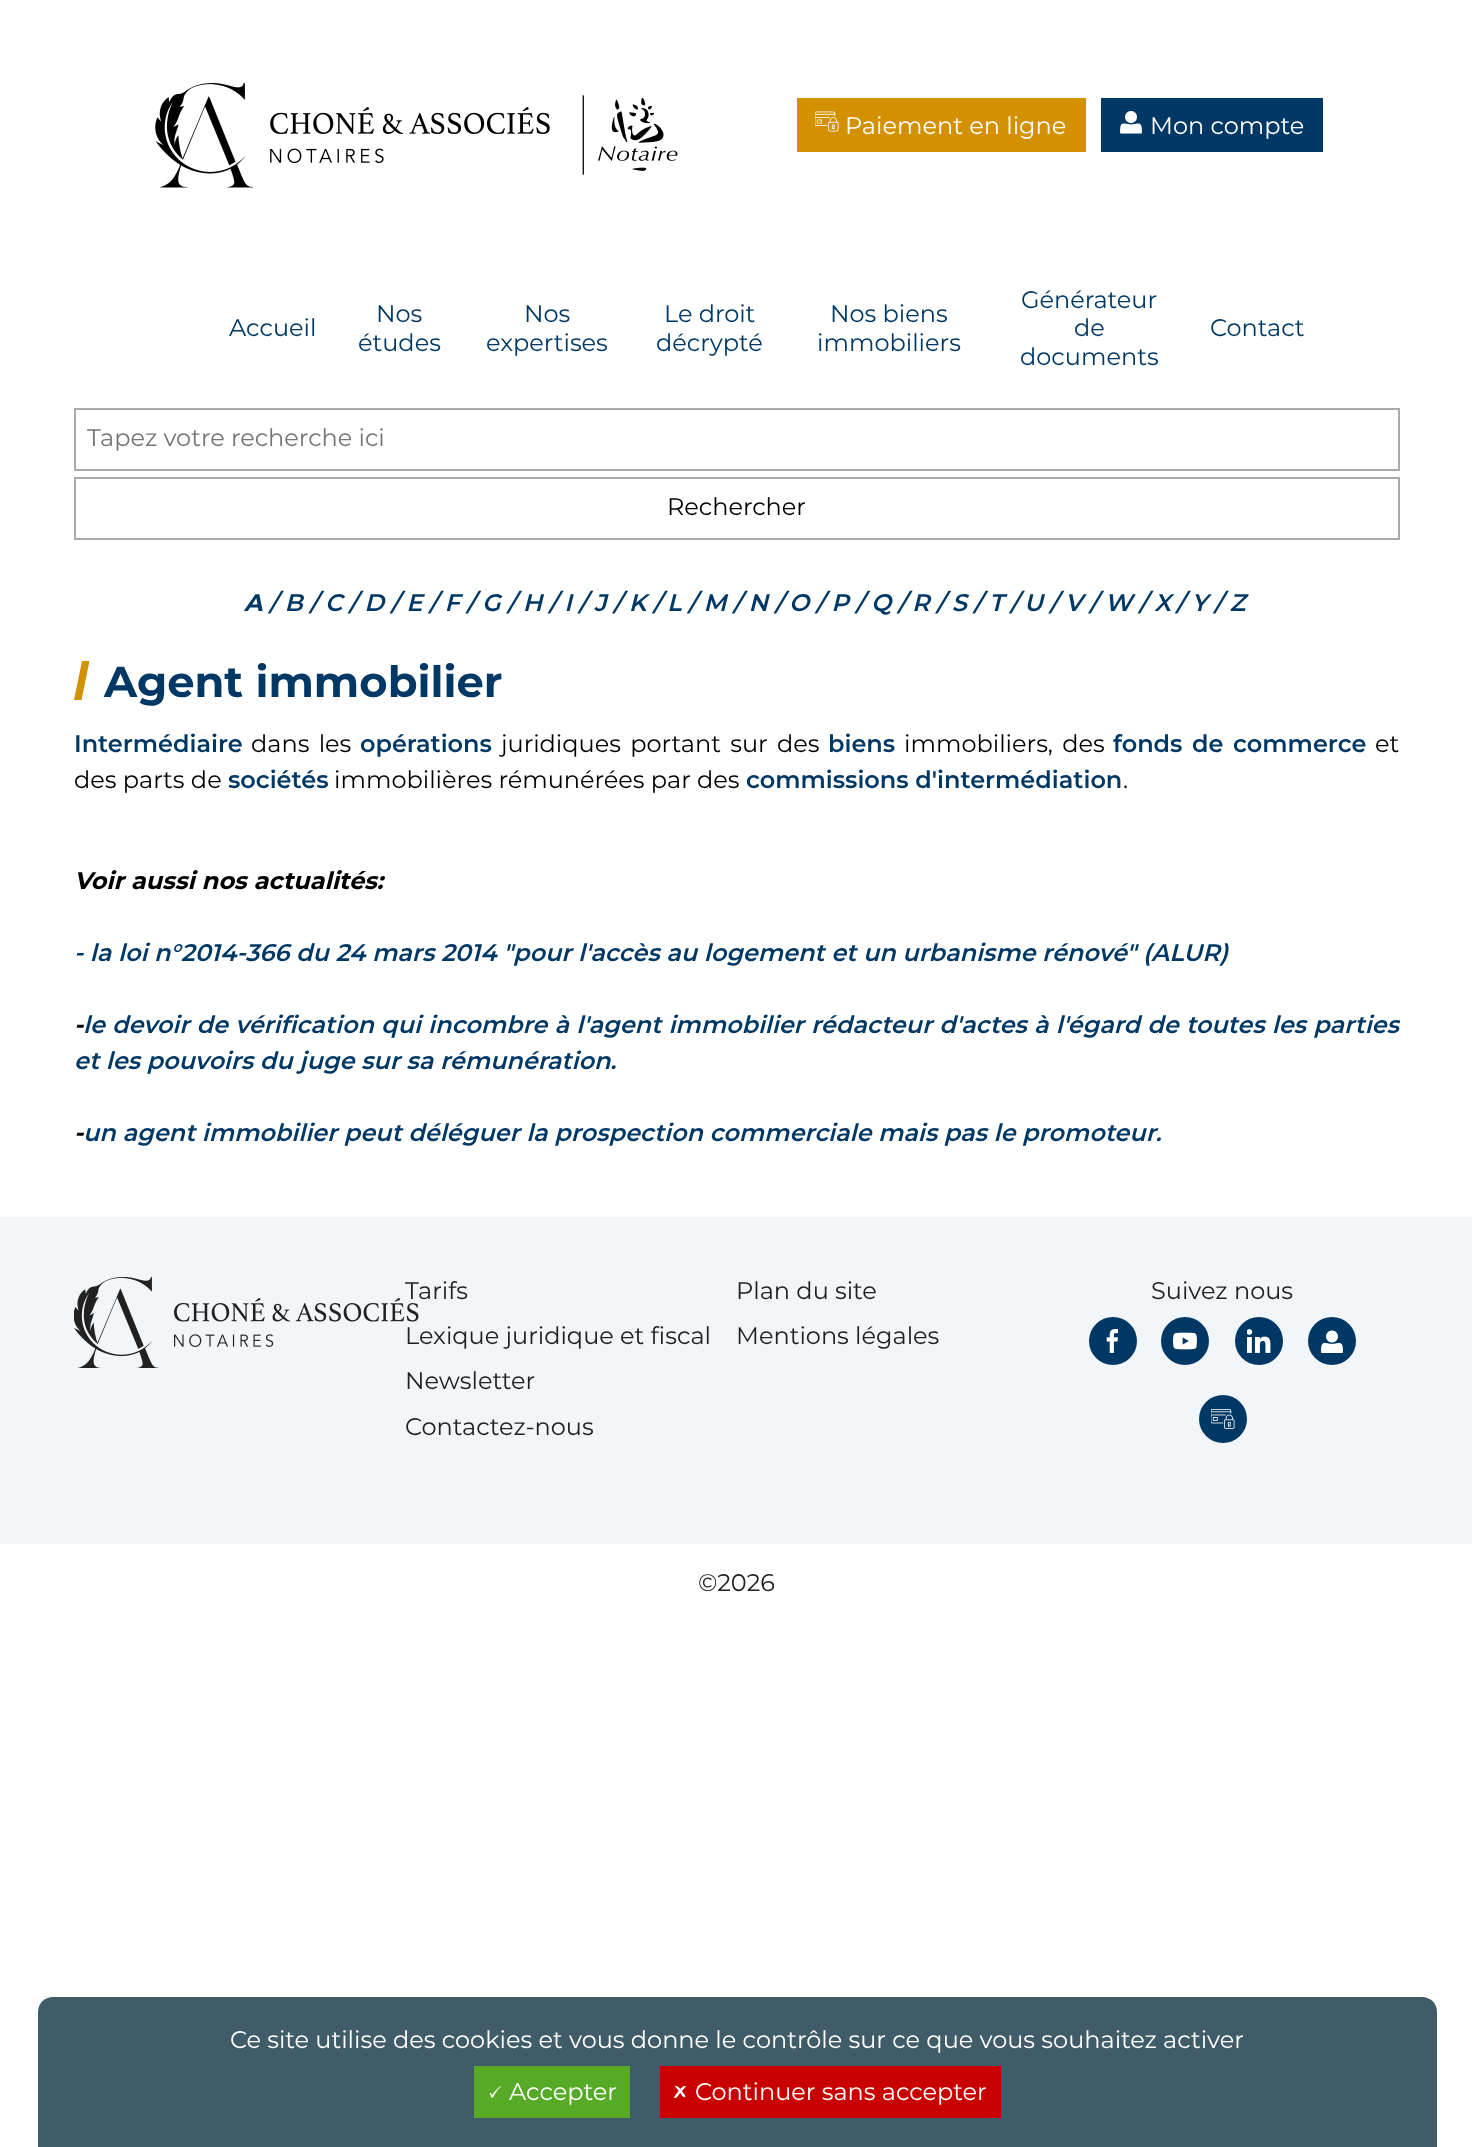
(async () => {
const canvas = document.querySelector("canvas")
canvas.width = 1472
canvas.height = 2147
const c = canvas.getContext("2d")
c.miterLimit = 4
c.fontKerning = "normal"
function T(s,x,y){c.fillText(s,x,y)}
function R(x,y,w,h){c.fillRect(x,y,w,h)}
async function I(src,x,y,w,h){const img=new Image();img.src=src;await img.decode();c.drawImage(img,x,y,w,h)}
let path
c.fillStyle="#fff"
R(0,0,1472,2147)
await I("1.png",155,83,395,105)
await I("2.png",582,95,96,80)
c.fillStyle="#d39100"
R(797,98,289,54)
await I("3.png",815,111,24,21)
c.font="24px Montserrat"
c.fillStyle="#fff"
T("Paiement en ligne",845,134)
c.fillStyle="#003865"
R(1101,98,222,54)
await I("4.png",1120,111,22,23)
c.fillStyle="#fff"
T("Mon compte",1150,134)
c.fillStyle="#003865"
T("Accueil",229,336)
T("Nos",376,322)
T("études",358,351)
T("Nos",524,322)
T("expertises",486,351)
T("Le droit",664,322)
T("décrypté",656,351)
T("Nos biens",830,322)
T("immobiliers",817,351)
T("Générateur",1021,308)
T("de",1074,336)
T("documents",1020,365)
T("Contact",1210,336)
c.strokeStyle="#aaa"
c.lineWidth=2
c.strokeRect(75,409,1324,61)
c.fillStyle="#757575"
T("Tapez votre recherche ici",87,446)
c.strokeRect(75,478,1324,61)
c.fillStyle="#000"
T("Rechercher",667,515)
c.font="italic bold 24px Montserrat"
c.fillStyle="#003865"
T("A",244,611)
c.font="italic 600 24px Montserrat"
T("/ B / C / D / E / F / G / H / I / J / K /",269,611)
T("L / M / N /",667,611)
T("O / P / Q /",789,611)
T("R / S / T /",912,611)
T("U / V / W / X",1024,611)
T("/ Y / Z",1176,611)
c.fillStyle="#d39100"
path = new Path2D("M82 661h7.5l-8 39h-7.5z")
c.fill(path)
c.font="bold 43.25px Montserrat"
c.fillStyle="#003865"
T("Agent immobilier",104,697)
c.font="600 24px Montserrat"
T("Intermédiaire",74,752)
c.wordSpacing="3px"
c.font="24px Montserrat"
c.fillStyle="#000"
T("dans les",251,752)
c.wordSpacing="0px"
c.font="600 24px Montserrat"
c.fillStyle="#003865"
T("opérations",360,752)
c.wordSpacing="3px"
c.font="24px Montserrat"
c.fillStyle="#000"
T("juridiques portant sur des",501,752)
c.wordSpacing="0px"
c.font="600 24px Montserrat"
c.fillStyle="#003865"
T("biens",828,752)
c.wordSpacing="3px"
c.font="24px Montserrat"
c.fillStyle="#000"
T("immobiliers, des",904,752)
c.font="600 24px Montserrat"
c.fillStyle="#003865"
T("fonds de commerce",1113,752)
c.wordSpacing="0px"
c.font="24px Montserrat"
c.fillStyle="#000"
T("et",1375,752)
T("des parts de",74,788)
c.font="600 24px Montserrat"
c.fillStyle="#003865"
T("sociétés",228,788)
c.font="24px Montserrat"
c.fillStyle="#000"
T("immobilières rémunérées par des",334,788)
c.font="600 24px Montserrat"
c.fillStyle="#003865"
T("commissions d'intermédiation",746,788)
c.font="24px Montserrat"
c.fillStyle="#000"
T(".",1123,788)
c.font="italic bold 24px Montserrat"
T("Voir aussi nos actualités:",74,889)
c.font="italic 600 24px Montserrat"
c.fillStyle="#003865"
T("- la loi n°2014-366 du 24 mars 2014 \"pour l'accès au logement et un urbanisme rénové\" (ALUR)",74,961)
c.font="italic bold 24px Montserrat"
c.fillStyle="#000"
T("-",74,1033)
c.save()
c.beginPath()
c.rect(74,405,1326,812)
c.clip()
c.wordSpacing="0.6px"
c.font="italic 600 24px Montserrat"
c.fillStyle="#003865"
T("le devoir de vérification qui incombre à l'agent immobilier rédacteur d'actes à l'égard de toutes les parties",83,1033)
c.restore()
c.font="italic 600 24px Montserrat"
c.fillStyle="#003865"
T("et les pouvoirs du juge sur sa rémunération.",74,1069)
c.font="italic bold 24px Montserrat"
c.fillStyle="#000"
T("-",74,1141)
c.font="italic 600 24px Montserrat"
c.fillStyle="#003865"
T("un agent immobilier peut déléguer la prospection commerciale mais pas le promoteur.",83,1141)
c.fillStyle="#f3f6f8"
R(0,1217,1472,327)
c.font="24px Montserrat"
c.fillStyle="#212121"
T("Tarifs",405,1299)
T("Lexique juridique et fiscal",405,1344)
await I("5.png",74,1277,345,91)
T("Newsletter",405,1389)
T("Contactez-nous",405,1435)
T("Plan du site",736,1299)
T("Mentions légales",736,1344)
T("Suivez nous",1151,1299)
c.fillStyle="#003865"
c.beginPath()
c.arc(1113,1341,24,0,7)
c.fill()
await I("6.png",1106,1329,12,24)
c.beginPath()
c.arc(1185,1341,24,0,7)
c.fill()
await I("7.png",1173,1332,24,18)
c.beginPath()
c.arc(1259,1341,24,0,7)
c.fill()
await I("8.png",1247,1329,24,24)
c.beginPath()
c.arc(1332,1341,24,0,7)
c.fill()
await I("9.png",1321,1330,22,23)
c.beginPath()
c.arc(1223,1419,24,0,7)
c.fill()
await I("10.png",1211,1409,24,20)
c.fillStyle="#212121"
T("©2026",698,1591)
c.fillStyle="#415c69"
path = new Path2D("M53 1997h1369c8.5 0 15 6.5 15 15v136h-1399v-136c0-8.5 6.5-15 15-15z")
c.fill(path)
c.fillStyle="#fff"
T("Ce site utilise des cookies et vous donne le contrôle sur ce que vous souhaitez activer",230,2048)
c.fillStyle="#56aa26"
R(474,2066,156,52)
c.font="24px FreeSerif"
c.fillStyle="#fff"
T("🗸",486,2100)
c.font="24px Montserrat"
T("Accepter",509,2100)
c.fillStyle="#c90000"
R(660,2066,341,52)
c.font="24px FreeSerif"
c.fillStyle="#fff"
T("🗶",671,2100)
c.font="24px Montserrat"
T("Continuer sans accepter",695,2100)
})()
